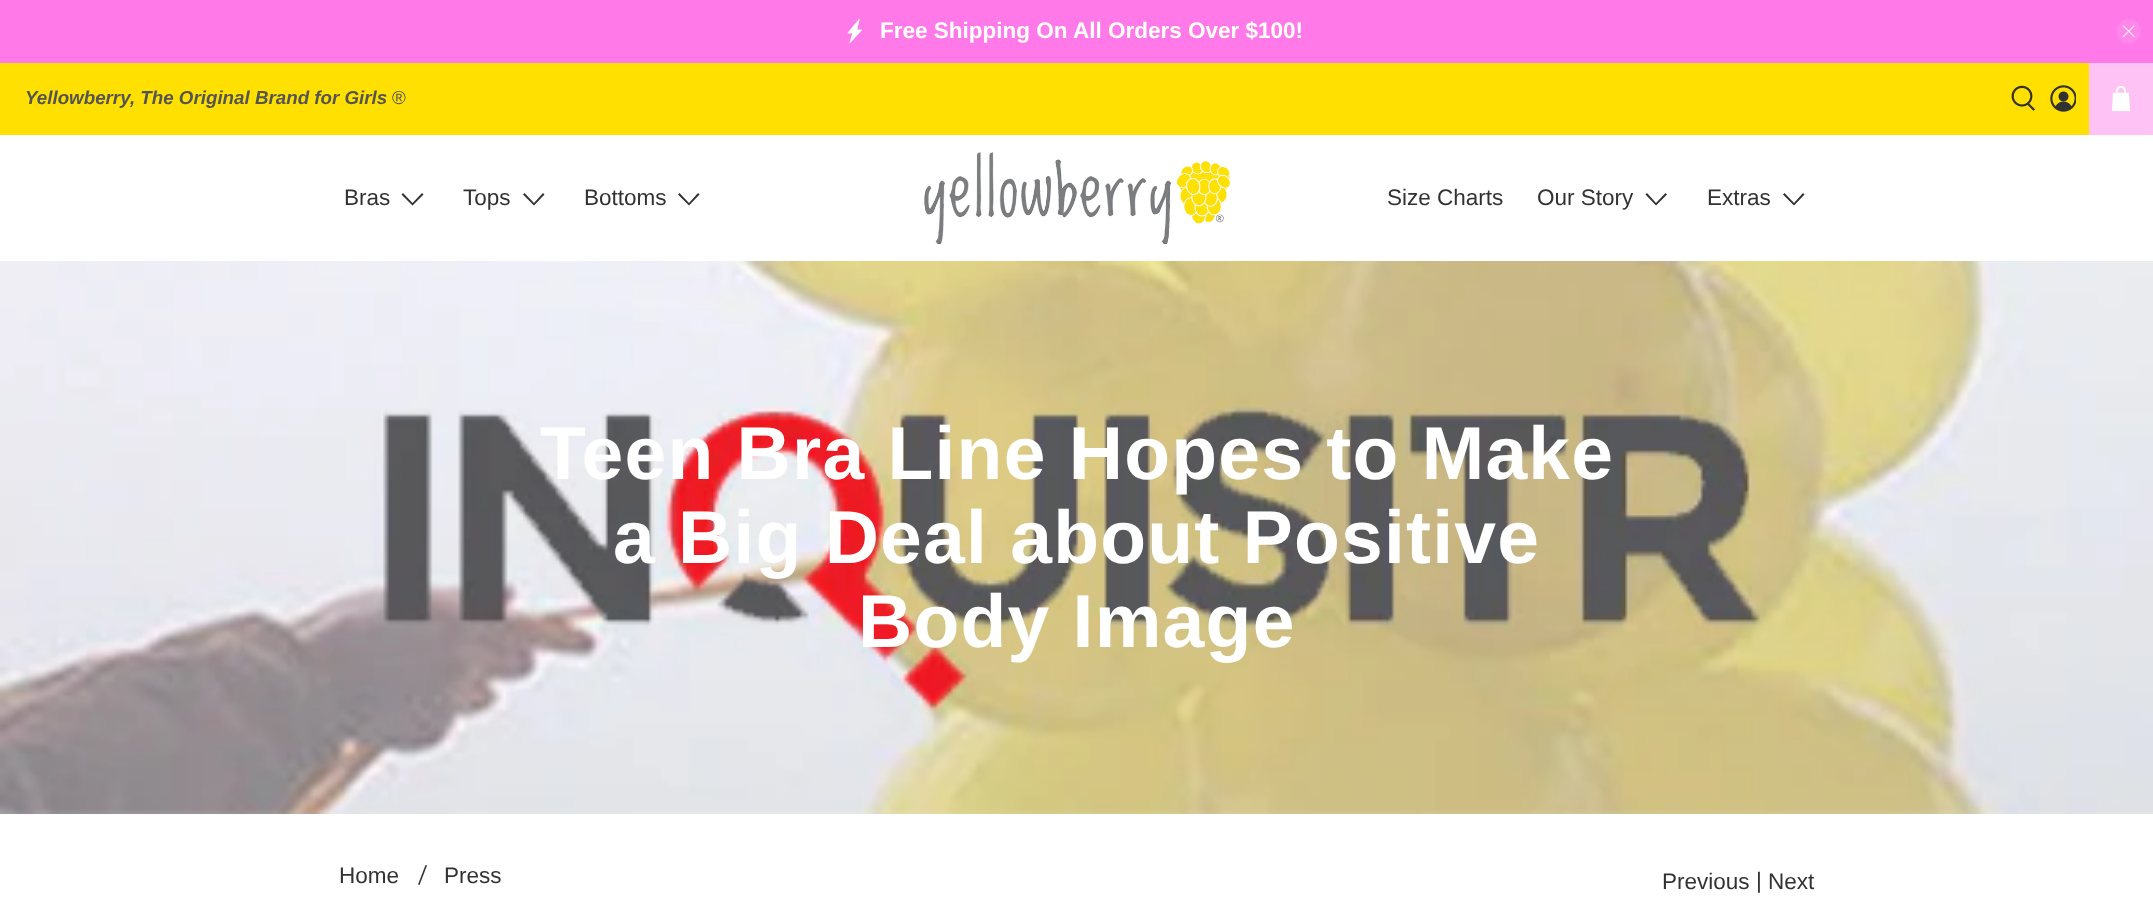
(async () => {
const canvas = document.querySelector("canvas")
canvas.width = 2153
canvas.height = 921
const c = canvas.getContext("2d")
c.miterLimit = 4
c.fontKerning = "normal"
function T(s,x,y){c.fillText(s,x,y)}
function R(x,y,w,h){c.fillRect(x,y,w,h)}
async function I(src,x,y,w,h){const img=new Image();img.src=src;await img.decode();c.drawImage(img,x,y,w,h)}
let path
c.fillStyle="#fff"
R(0,0,2153,921)
c.fillStyle="#ff79e8"
R(0,0,2153,63)
await I("1.png",847,18,15,26)
c.font="bold 22.5px Liberation Sans"
c.fillStyle="#fff"
T("Free Shipping On All Orders Over $100!",880,38)
c.fillStyle="#ff86ea"
c.beginPath()
c.arc(2128.5,31.5,12.5,0,7)
c.fill()
await I("2.png",2123,25,12,13)
c.fillStyle="#ffe000"
R(0,63,2089,72)
c.font="italic bold 18.75px Liberation Sans"
c.fillStyle="#545454"
T("Yellowberry, The Original Brand for Girls",25,104)
c.font="18.75px Liberation Sans"
T("®",392,104)
await I("3.png",2011,85,24,26)
await I("4.png",2050,85,26,27)
c.fillStyle="#ffc2f5"
R(2089,63,64,72)
await I("5.png",2112,86,18,26)
c.font="22.5px Liberation Sans"
c.fillStyle="#333232"
T("Bras",344,205)
path = new Path2D("M412.5 205.5l-11-11l1.5-1.5l9.5 10l9.5-10l1.5 1.5z")
c.fill(path)
T("Tops",463,205)
path = new Path2D("M534 205.5l-11-11l1.5-1.5l9.5 10l9-10l1.5 1.5z")
c.fill(path)
T("Bottoms",584,205)
path = new Path2D("M689 205.5l-11-11l1.5-1.5l9.5 10l9-10l1.5 1.5z")
c.fill(path)
await I("6.png",924,152,307,93)
T("Size Charts",1387,205)
T("Our Story",1537,205)
path = new Path2D("M1656 205.5l-10.5-11l1.5-1.5l9 10l9.5-10l1.5 1.5z")
c.fill(path)
T("Extras",1707,205)
path = new Path2D("M1794 205.5l-11-11l1.5-1.5l9.5 10l9-10l1.5 1.5z")
c.fill(path)
await I("7.png",0,261,2153,553)
c.letterSpacing="1.25px"
c.font="bold 75px Liberation Sans"
c.fillStyle="#fff"
T("Teen Bra Line Hopes to Make",540,479)
T("a Big Deal about Positive",613,563)
T("Body Image",858,647)
c.letterSpacing="0px"
c.font="22.5px Liberation Sans"
c.fillStyle="#333232"
T("Home",339,883)
path = new Path2D("M418 884.5l7.5-19.5l1.5 .5l-7.5 19.5z")
c.fill(path)
T("Press",444,883)
T("Previous",1662,889)
T("|",1756,888)
T("Next",1768,889)
})()
